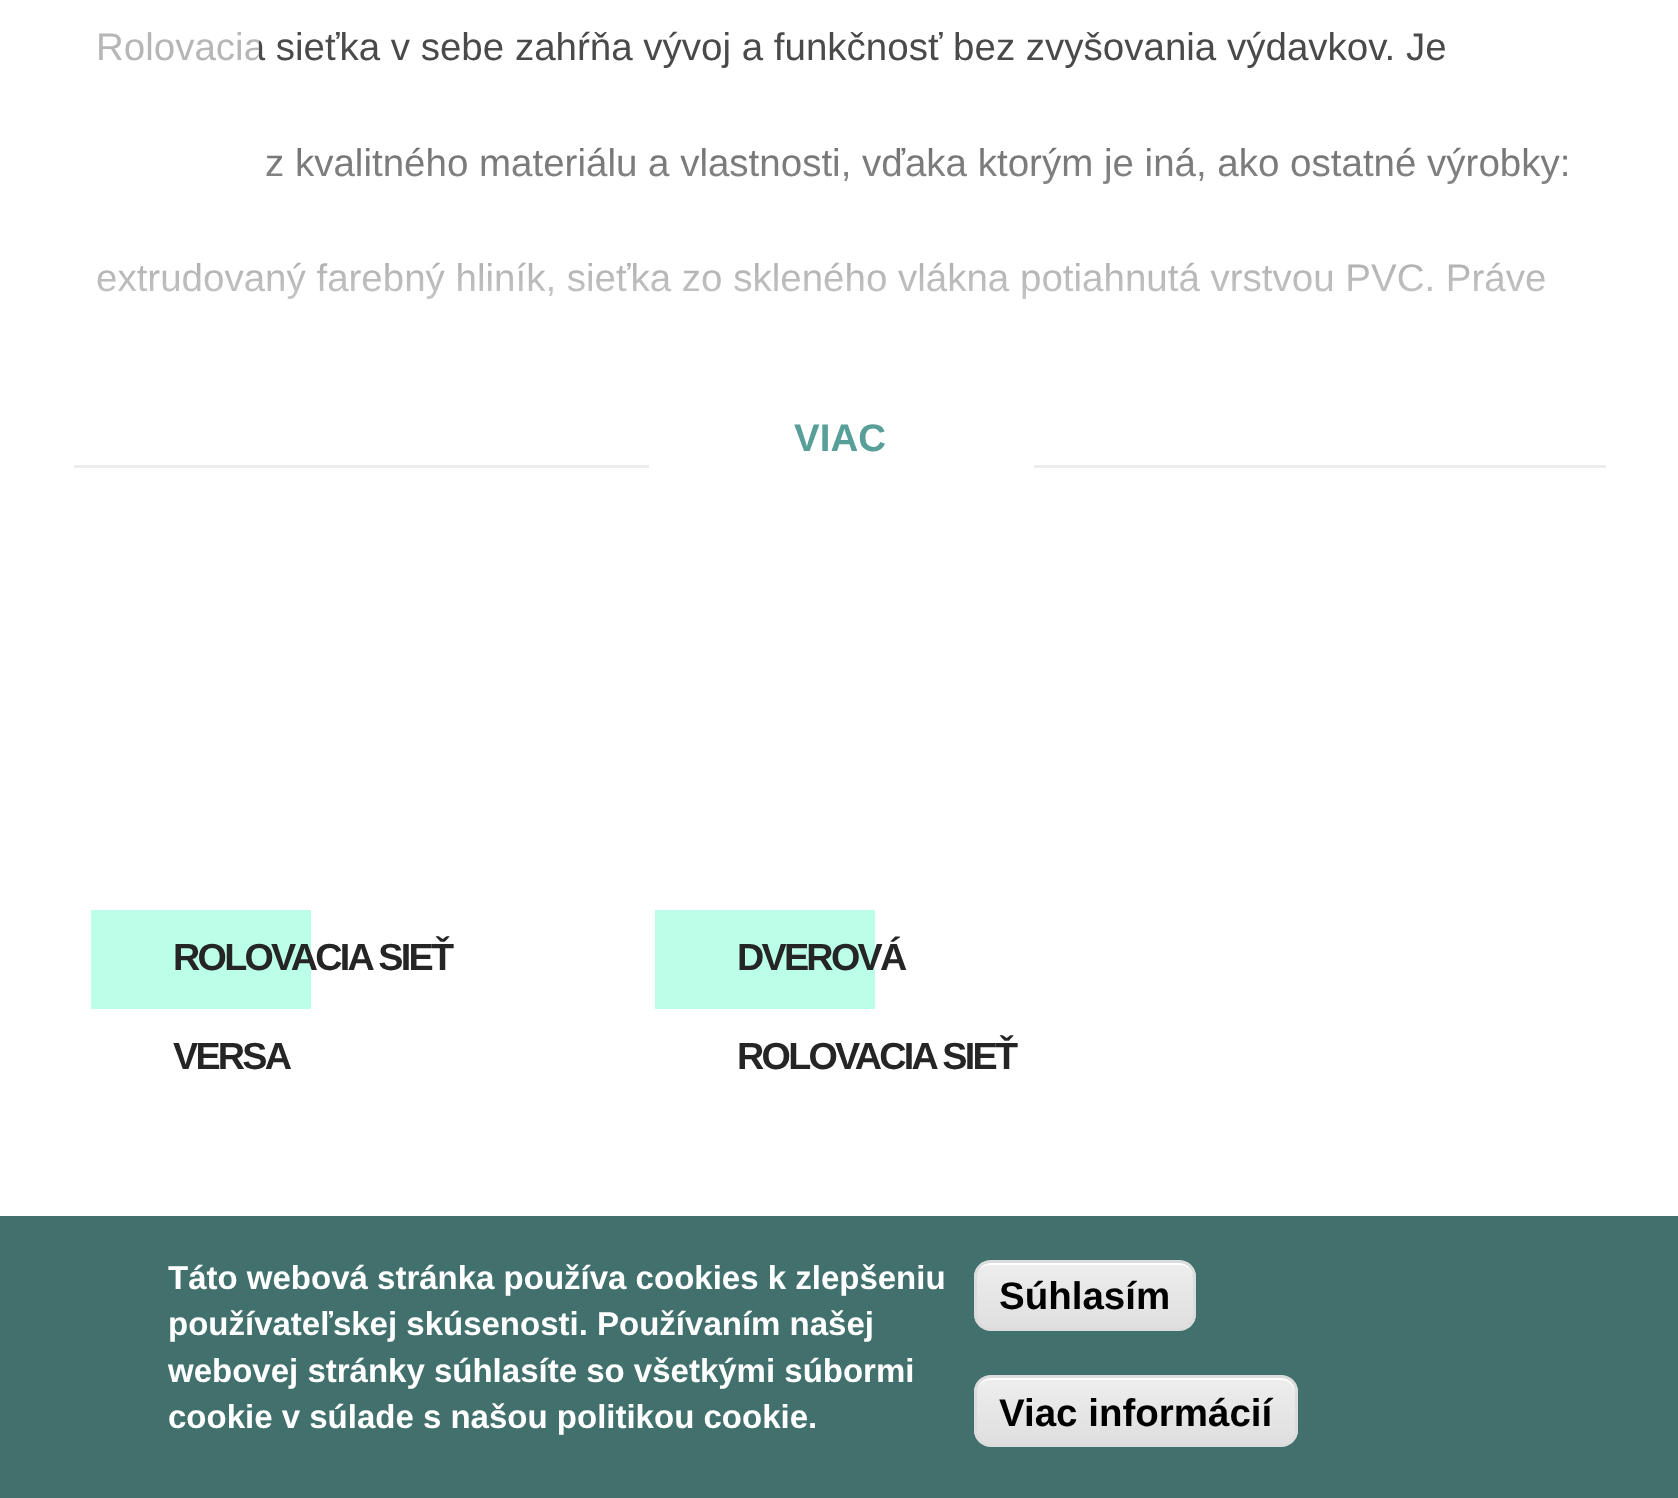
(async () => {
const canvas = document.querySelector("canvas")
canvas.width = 1678
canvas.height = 1498
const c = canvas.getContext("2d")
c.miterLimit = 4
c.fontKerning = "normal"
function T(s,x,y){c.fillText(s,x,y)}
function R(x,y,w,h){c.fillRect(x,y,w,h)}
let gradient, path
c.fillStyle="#fff"
R(0,0,1678,1498)
c.font="38.5px Liberation Sans"
c.fillStyle="#4a4a4a"
T("Rolovacia sieťka v sebe zahŕňa vývoj a funkčnosť bez zvyšovania výdavkov. Je",96,60)
T("z kvalitného materiálu a vlastnosti, vďaka ktorým je iná, ako ostatné výrobky:",265,176)
T("extrudovaný farebný hliník, sieťka zo skleného vlákna potiahnutá vrstvou PVC. Práve",96,291)
gradient = c.createLinearGradient(840,404,840,74)
gradient.addColorStop(0,"#fff")
gradient.addColorStop(1,"#ffffff00")
c.fillStyle = gradient
R(97,147,1471,152)
c.fillStyle="#ededed"
R(74,465,1532,3)
c.fillStyle="#fff"
R(649,465,385,3)
c.font="bold 38.5px Liberation Sans"
c.fillStyle="#589e99"
T("VIAC",794,451)
c.fillStyle="#bcffe9"
R(91,910,220,99)
c.letterSpacing="-2.75px"
c.font="bold 37.75px Liberation Sans"
c.fillStyle="#252525"
T("ROLOVACIA SIEŤ",173,970)
T("VERSA",173,1069)
c.fillStyle="#bcffe9"
R(655,910,220,99)
c.fillStyle="#252525"
T("DVEROVÁ",737,970)
T("ROLOVACIA SIEŤ",737,1069)
c.fillStyle="#ffffff99"
R(99,32,160,29)
c.fillStyle="#42716d"
R(0,1216,1678,282)
c.letterSpacing="0px"
c.font="bold 33px Liberation Sans"
c.fillStyle="#fff"
T("Táto webová stránka používa cookies k zlepšeniu",168,1289)
T("používateľskej skúsenosti. Používaním našej",168,1335)
T("webovej stránky súhlasíte so všetkými súbormi",168,1382)
T("cookie v súlade s našou politikou cookie.",168,1428)
c.save()
c.beginPath()
c.roundRect(974,1260,222,71,17)
c.clip()
gradient = c.createLinearGradient(1085,1262,1085,1328)
gradient.addColorStop(.05,"#ededed")
gradient.addColorStop(1,"#dfdfdf")
c.fillStyle = gradient
R(974,1262,222,66)
c.restore()
path = new Path2D("M990 1265h190c7 0 14 6 14 14v-3c0-8-6-14-14-14h-190c-8 0-14 6-14 14v3c0-8 6-14 14-14z")
c.fill(path)
c.beginPath()
c.roundRect(975.5,1261.5,219,68,15.5)
c.strokeStyle="#dcdcdc"
c.lineWidth=3
c.stroke()
c.font="bold 38.5px Liberation Sans"
c.fillStyle="#000"
T("Súhlasím",999,1309)
c.save()
c.beginPath()
c.roundRect(974,1375,324,72,17)
c.clip()
gradient = c.createLinearGradient(1136,1378,1136,1444)
gradient.addColorStop(.05,"#ededed")
gradient.addColorStop(1,"#dfdfdf")
c.fillStyle = gradient
R(974,1378,324,66)
c.restore()
c.fillStyle="#fff"
path = new Path2D("M990 1380h292c7 0 13 7 13 14v-2c0-8-6-14-14-14h-291c-8 0-14 6-14 14v2c0-7 6-14 14-14z")
c.fill(path)
c.beginPath()
c.roundRect(975.5,1376.5,321,69,15.5)
c.stroke()
c.fillStyle="#000"
T("Viac informácií",999,1426)
})()
